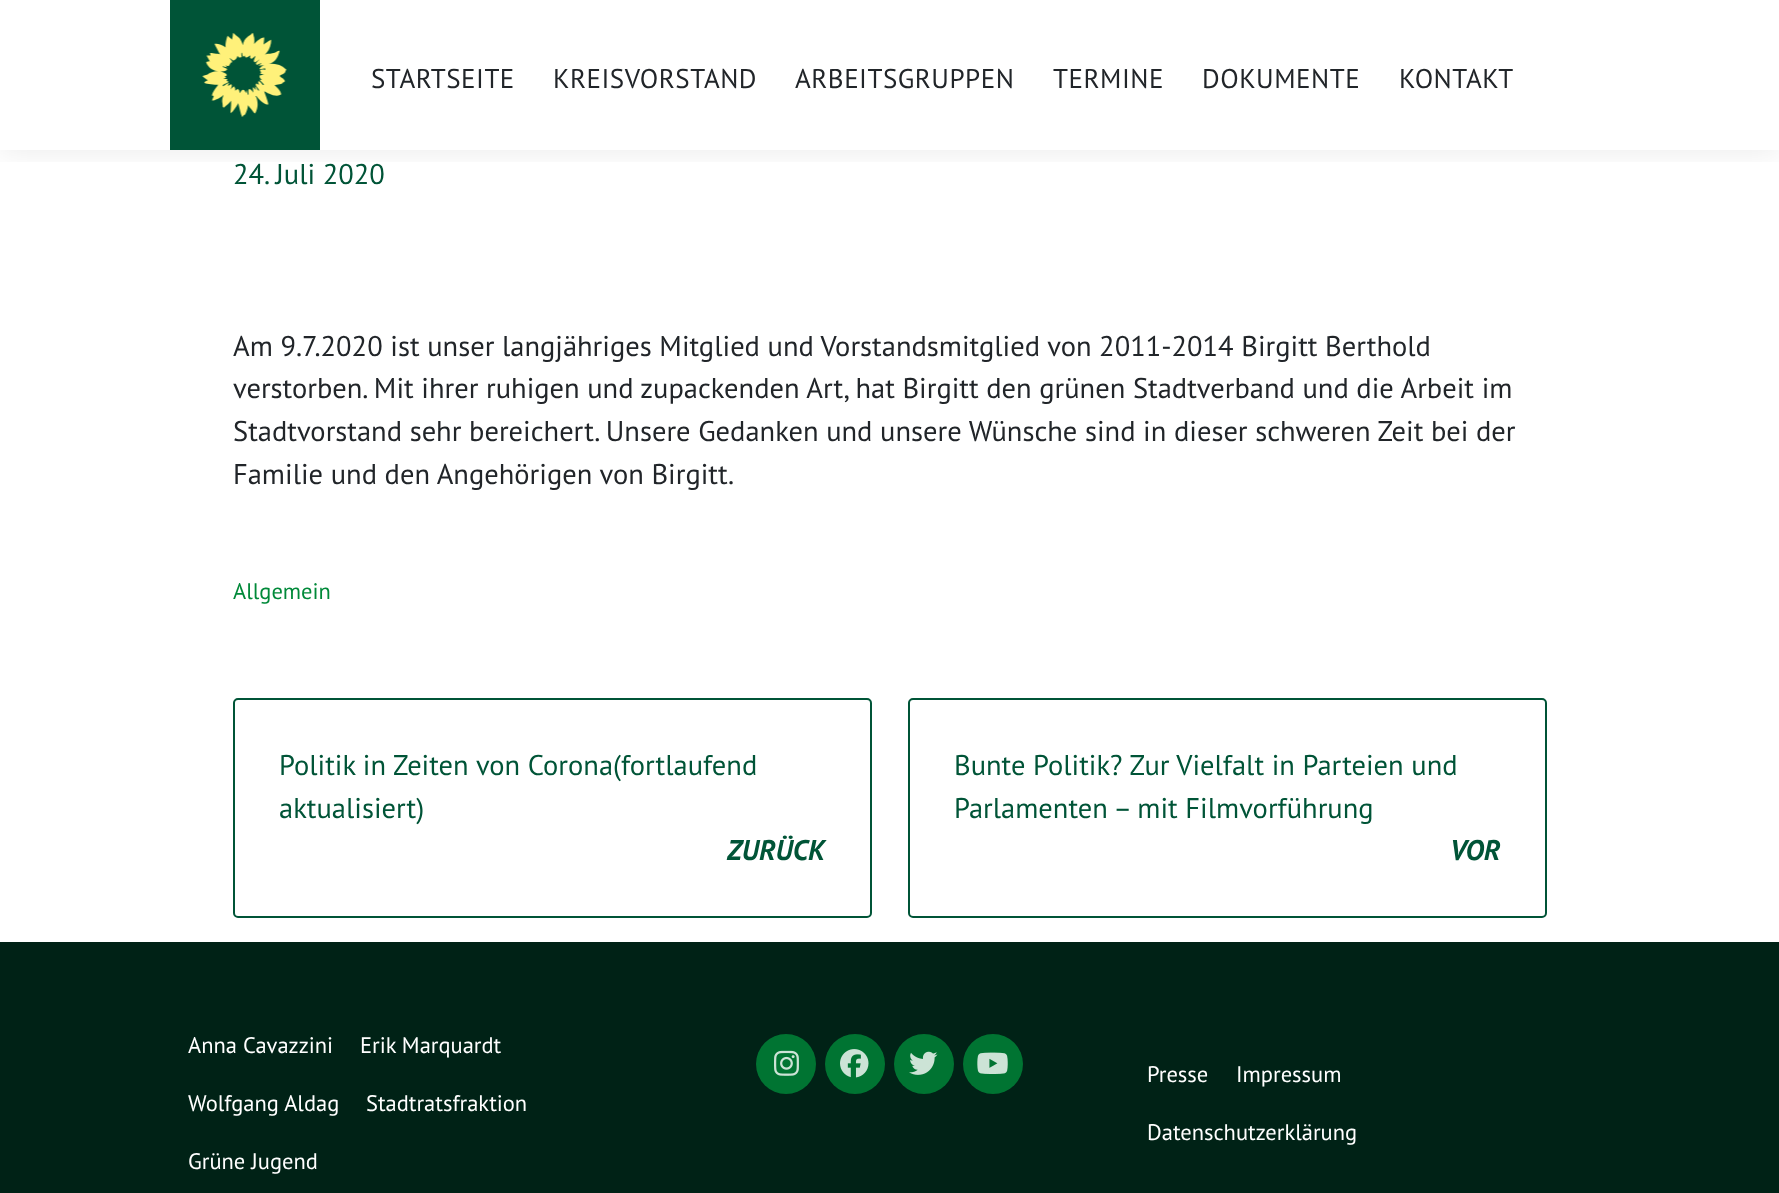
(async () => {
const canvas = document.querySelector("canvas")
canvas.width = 1779
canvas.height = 1193
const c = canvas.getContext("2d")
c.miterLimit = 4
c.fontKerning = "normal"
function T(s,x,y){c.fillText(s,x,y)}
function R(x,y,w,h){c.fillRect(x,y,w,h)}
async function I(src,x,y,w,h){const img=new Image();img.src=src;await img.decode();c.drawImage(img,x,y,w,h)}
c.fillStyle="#fff"
R(0,0,1779,1193)
c.save()
c.beginPath()
c.rect(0,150,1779,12)
c.clip()
c.fillStyle="#00000014"
c.filter="blur(15px)"
c.beginPath()
c.rect(0,2,1779,150)
c.fill()
c.filter="none"
c.restore()
c.fillStyle="#005437"
R(170,0,150,150)
await I("1.png",202,33,85,84)
c.letterSpacing="0.5px"
c.font="27px PT Sans"
c.fillStyle="#212529"
T("STARTSEITE",371,88)
T("KREISVORSTAND",553,88)
T("ARBEITSGRUPPEN",795,88)
T("TERMINE",1053,88)
T("DOKUMENTE",1202,88)
T("KONTAKT",1399,88)
c.letterSpacing="0px"
c.font="28.5px PT Sans"
c.fillStyle="#005437"
T("24. Juli 2020",233,184)
c.fillStyle="#212529"
T("Am 9.7.2020 ist unser langjähriges Mitglied und Vorstandsmitglied von 2011-2014 Birgitt Berthold",233,356)
T("verstorben. Mit ihrer ruhigen und zupackenden Art, hat Birgitt den grünen Stadtverband und die Arbeit im",233,398)
T("Stadtvorstand sehr bereichert. Unsere Gedanken und unsere Wünsche sind in dieser schweren Zeit bei der",233,441)
T("Familie und den Angehörigen von Birgitt.",233,484)
c.font="22.5px PT Sans"
c.fillStyle="#008939"
T("Allgemein",233,599)
c.beginPath()
c.roundRect(234,699,637,218,4)
c.strokeStyle="#005437"
c.lineWidth=2
c.stroke()
c.font="28.5px PT Sans"
c.fillStyle="#005437"
T("Politik in Zeiten von Corona(fortlaufend",279,775)
T("aktualisiert)",279,818)
c.font="italic bold 28.5px PT Sans"
T("ZURÜCK",727,860)
c.beginPath()
c.roundRect(909,699,637,218,4)
c.stroke()
c.font="28.5px PT Sans"
T("Bunte Politik? Zur Vielfalt in Parteien und",954,775)
T("Parlamenten – mit Filmvorführung",954,818)
c.font="italic bold 28.5px PT Sans"
T("VOR",1450,860)
c.fillStyle="#002216"
R(0,942,1779,251)
c.font="22.5px PT Sans"
c.fillStyle="#fff"
T("Anna Cavazzini",188,1053)
T("Erik Marquardt",360,1053)
T("Wolfgang Aldag",188,1111)
T("Stadtratsfraktion",366,1111)
T("Grüne Jugend",188,1169)
c.fillStyle="#007432"
c.beginPath()
c.arc(786,1064,30,0,7)
c.fill()
await I("2.png",774,1050,25,26)
c.beginPath()
c.arc(855,1064,30,0,7)
c.fill()
await I("3.png",840,1049,29,29)
c.beginPath()
c.arc(924,1064,30,0,7)
c.fill()
await I("4.png",909,1051,29,24)
c.beginPath()
c.arc(993,1064,30,0,7)
c.fill()
await I("5.png",977,1052,31,22)
c.fillStyle="#fff"
T("Presse",1147,1082)
T("Impressum",1236,1082)
T("Datenschutzerklärung",1147,1140)
})()
